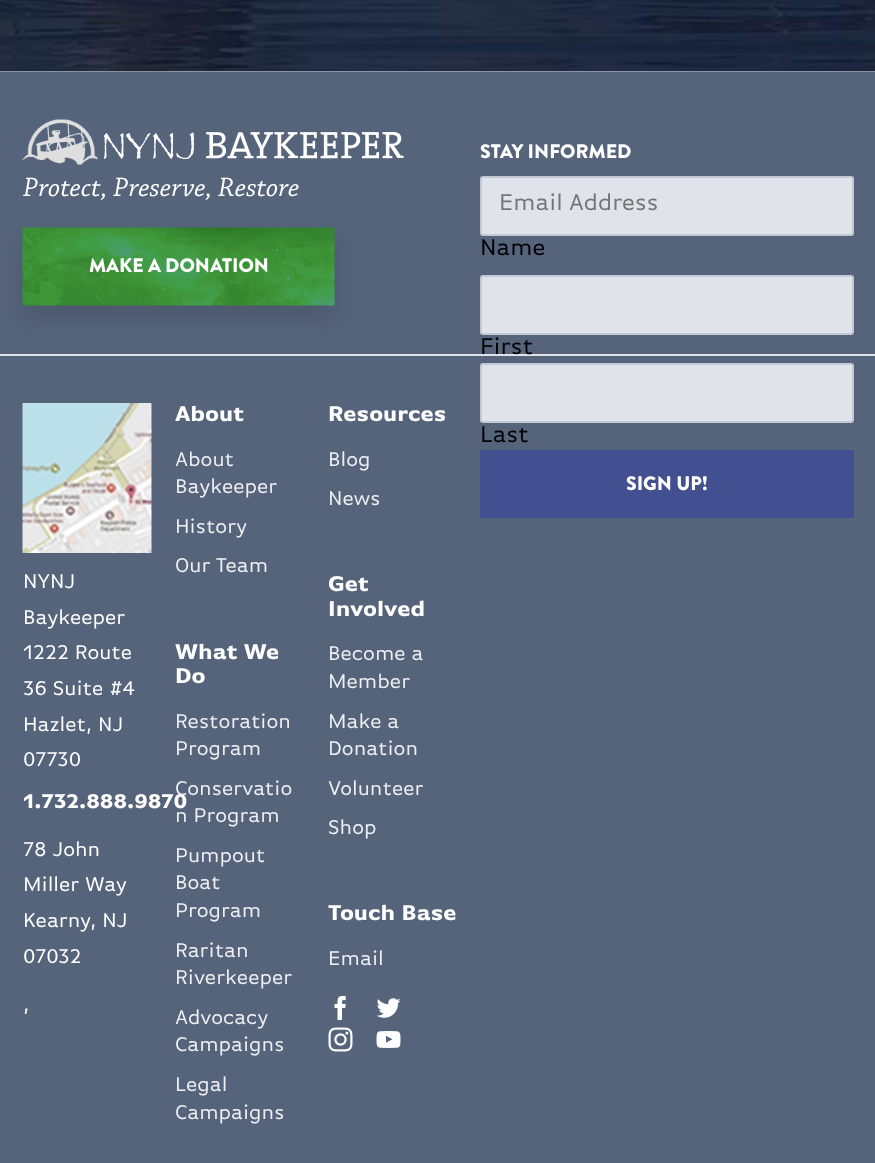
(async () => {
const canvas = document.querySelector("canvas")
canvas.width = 875
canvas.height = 1163
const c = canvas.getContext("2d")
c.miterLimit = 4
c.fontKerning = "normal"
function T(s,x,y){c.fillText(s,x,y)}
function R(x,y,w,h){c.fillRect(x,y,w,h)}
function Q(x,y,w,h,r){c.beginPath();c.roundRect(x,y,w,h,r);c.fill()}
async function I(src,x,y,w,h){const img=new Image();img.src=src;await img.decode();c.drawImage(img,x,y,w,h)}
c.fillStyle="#fff"
R(0,0,875,1163)
await I("1.png",0,0,875,72)
c.fillStyle="#55637b"
R(0,72,875,1091)
c.fillStyle="#e0e3ea"
R(0,354,875,2)
await I("2.png",22,119,76,46)
await I("3.png",104,132,300,27)
c.font="italic 28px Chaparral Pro"
c.fillStyle="#fff"
T("Protect, Preserve, Restore",23,196)
c.font="900 19.5px Brandon Grotesque"
T("STAY INFORMED",480,158)
c.fillStyle="#e0e3ea"
c.beginPath()
c.roundRect(481,177,372,58,2)
c.fill()
c.strokeStyle="#c2c8d5"
c.lineWidth=2
c.stroke()
c.font="24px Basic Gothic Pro"
c.fillStyle="#757575"
T("Email Address",499,210)
c.fillStyle="#000"
T("Name",480,255)
c.fillStyle="#e0e3ea"
c.beginPath()
c.roundRect(481,276,372,58,2)
c.fill()
c.stroke()
c.fillStyle="#000"
T("First",480,354)
c.fillStyle="#e0e3ea"
c.beginPath()
c.roundRect(481,364,372,58,2)
c.fill()
c.stroke()
c.fillStyle="#000"
T("Last",480,442)
c.fillStyle="#424f90"
Q(480,450,374,68,1.5)
c.font="900 19.5px Brandon Grotesque"
c.fillStyle="#fff"
T("SIGN UP!",626,490)
c.fillStyle="#0000001a"
c.filter="blur(9px)"
c.beginPath()
c.roundRect(23,240,312,78,3)
c.fill()
c.filter="none"
await I("4.png",22,227,313,79)
c.fillStyle="#fff"
T("MAKE A DONATION",89,272)
c.font="bold 22.5px Basic Gothic Pro"
T("About",175,421)
c.font="21px Basic Gothic Pro"
c.fillStyle="#eeeff2"
T("About",175,466)
T("Baykeeper",175,493)
T("History",175,533)
T("Our Team",175,572)
c.font="bold 22.5px Basic Gothic Pro"
c.fillStyle="#fff"
T("Resources",328,421)
c.font="21px Basic Gothic Pro"
c.fillStyle="#eeeff2"
T("Blog",328,466)
T("News",328,505)
await I("5.png",22,403,130,150)
c.fillStyle="#fff"
T("NYNJ",23,588)
T("Baykeeper",23,624)
T("1222 Route",23,659)
T("36 Suite #4",23,695)
T("Hazlet, NJ",23,731)
T("07730",23,766)
c.font="bold 21px Basic Gothic Pro"
T("1.732.888.9870",23,808)
c.font="21px Basic Gothic Pro"
T("78 John",23,856)
T("Miller Way",23,891)
T("Kearny, NJ",23,927)
T("07032",23,963)
T(",",23,1011)
c.font="bold 22.5px Basic Gothic Pro"
T("What We",175,659)
T("Do",175,683)
c.font="21px Basic Gothic Pro"
c.fillStyle="#eeeff2"
T("Restoration",175,728)
T("Program",175,755)
T("Conservatio",175,795)
T("n Program",175,822)
T("Pumpout",175,862)
T("Boat",175,889)
T("Program",175,917)
T("Raritan",175,957)
T("Riverkeeper",175,984)
T("Advocacy",175,1024)
T("Campaigns",175,1051)
T("Legal",175,1091)
T("Campaigns",175,1119)
c.font="bold 22.5px Basic Gothic Pro"
c.fillStyle="#fff"
T("Get",328,591)
T("Involved",328,616)
c.font="21px Basic Gothic Pro"
c.fillStyle="#eeeff2"
T("Become a",328,660)
T("Member",328,688)
T("Make a",328,728)
T("Donation",328,755)
T("Volunteer",328,795)
T("Shop",328,834)
c.font="bold 22.5px Basic Gothic Pro"
c.fillStyle="#fff"
T("Touch Base",328,920)
c.font="21px Basic Gothic Pro"
c.fillStyle="#eeeff2"
T("Email",328,965)
await I("6.png",334,996,12,24)
await I("7.png",376,998,25,20)
await I("8.png",328,1027,25,25)
await I("9.png",376,1031,25,17)
})()
